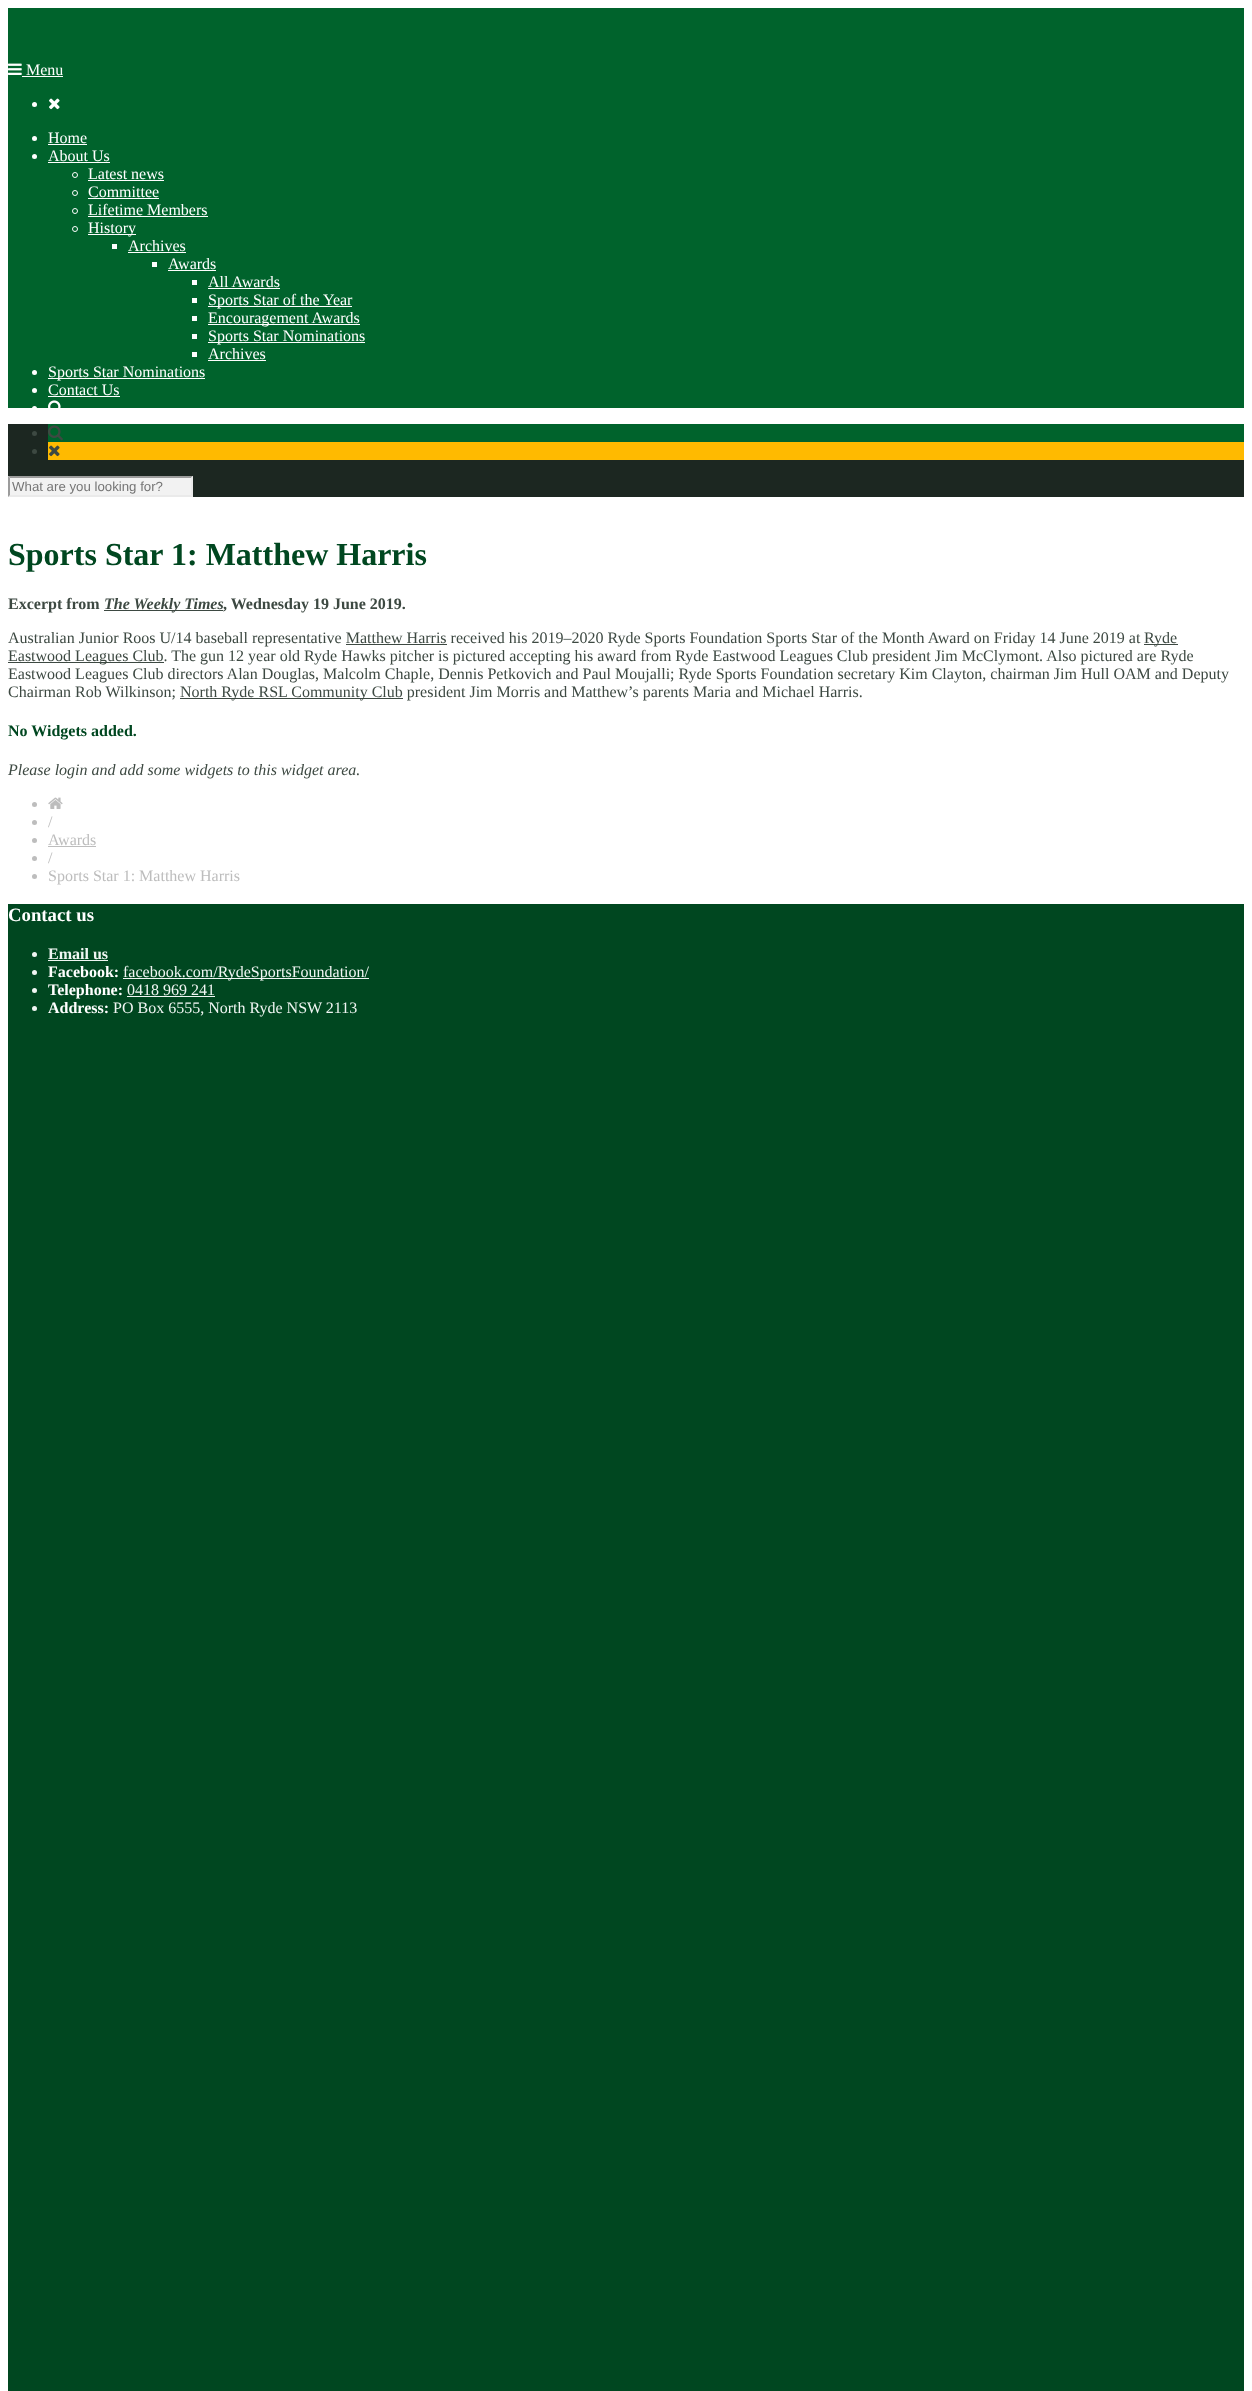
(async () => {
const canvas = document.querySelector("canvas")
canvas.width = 1252
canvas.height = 2391
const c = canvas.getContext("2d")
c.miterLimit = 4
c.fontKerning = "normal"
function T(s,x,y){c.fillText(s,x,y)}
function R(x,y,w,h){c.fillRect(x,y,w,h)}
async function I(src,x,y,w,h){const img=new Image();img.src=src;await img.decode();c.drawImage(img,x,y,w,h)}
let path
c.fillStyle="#fff"
R(0,0,1252,2391)
c.fillStyle="#00632c"
R(8,8,1236,400)
await I("1.png",8,63,14,12)
c.font="16px Liberation Serif"
c.fillStyle="#fff"
T("Menu",26,75)
R(22,76,41,1)
c.beginPath()
c.arc(34.5,104.5,2.5,0,7)
c.fill()
await I("2.png",49,98,11,12)
c.beginPath()
c.arc(34.5,138.5,2.5,0,7)
c.fill()
T("Home",48,143)
R(48,144,39,1)
c.beginPath()
c.arc(34.5,156.5,2.5,0,7)
c.fill()
T("About Us",48,161)
R(48,162,62,1)
c.beginPath()
c.arc(75,175,2.5,0,7)
c.strokeStyle="#fff"
c.stroke()
T("Latest news",88,179)
R(88,180,76,1)
c.beginPath()
c.arc(75,193,2.5,0,7)
c.stroke()
T("Committee",88,197)
R(88,198,71,1)
c.beginPath()
c.arc(75,211,2.5,0,7)
c.stroke()
T("Lifetime Members",88,215)
R(88,216,120,1)
c.beginPath()
c.arc(75,229,2.5,0,7)
c.stroke()
R(88,234,48,1)
T("History",88,233)
R(112,244,5,5)
T("Archives",128,251)
R(128,252,58,1)
R(152,262,5,5)
T("Awards",168,269)
R(168,270,48,1)
R(192,280,5,5)
T("All Awards",208,287)
R(208,288,72,1)
R(192,298,5,5)
R(208,306,144,1)
T("Sports Star of the Year",208,305)
R(192,316,5,5)
R(208,324,152,1)
T("Encouragement Awards",208,323)
R(192,334,5,5)
R(208,342,157,1)
T("Sports Star Nominations",208,341)
R(192,352,5,5)
T("Archives",208,359)
R(208,360,58,1)
c.beginPath()
c.arc(34.5,372.5,2.5,0,7)
c.fill()
R(48,378,157,1)
T("Sports Star Nominations",48,377)
c.beginPath()
c.arc(34.5,390.5,2.5,0,7)
c.fill()
T("Contact Us",48,395)
R(48,396,72,1)
await I("3.png",48,400,13,8)
c.beginPath()
c.arc(34.5,408.5,2.5,0,7)
c.fill()
c.fillStyle="#1c2721"
R(8,424,1236,73)
c.fillStyle="#00632c"
R(48,424,1196,18)
c.fillStyle="#3d4942"
c.beginPath()
c.arc(34.5,433.5,2.5,0,7)
c.fill()
await I("4.png",48,425,15,16)
c.fillStyle="#ffba00"
R(48,442,1196,18)
c.fillStyle="#3d4942"
c.beginPath()
c.arc(34.5,451.5,2.5,0,7)
c.fill()
await I("5.png",49,445,11,12)
c.fillStyle="#f2f2f2"
R(8,476,185,21)
c.fillStyle="#9c9c9c"
path = new Path2D("M8 476h185l-2 2h-181z")
c.fill(path)
c.fillStyle="#eaeaea"
path = new Path2D("M193 476v21l-2-2v-17z")
c.fill(path)
path = new Path2D("M193 497h-185l2-2h181z")
c.fill(path)
c.fillStyle="#9c9c9c"
path = new Path2D("M8 497v-21l2 2v17z")
c.fill(path)
c.font="13.25px Liberation Sans"
c.fillStyle="#757575"
T("What are you looking for?",12,491)
c.font="bold 32px Liberation Serif"
c.fillStyle="#004720"
T("Sports Star 1: Matthew Harris",8,565)
c.font="bold 16px Liberation Serif"
c.fillStyle="#3d4942"
T("Excerpt from",8,609)
R(104,610,119,1)
c.font="italic bold 16px Liberation Serif"
T("The Weekly Times",104,609)
c.font="bold 16px Liberation Serif"
T(", Wednesday 19 June 2019.",223,609)
c.font="16px Liberation Serif"
T("Australian Junior Roos U/14 baseball representative Matthew Harris received his 2019–2020 Ryde Sports Foundation Sports Star of the Month Award on Friday 14 June 2019 at",8,643)
R(1144,644,34,1)
T("Ryde",1144,643)
R(346,644,101,1)
R(8,662,156,1)
T("Eastwood Leagues Club. The gun 12 year old Ryde Hawks pitcher is pictured accepting his award from Ryde Eastwood Leagues Club president Jim McClymont. Also pictured are Ryde",8,661)
T("Eastwood Leagues Club directors Alan Douglas, Malcolm Chaple, Dennis Petkovich and Paul Moujalli; Ryde Sports Foundation secretary Kim Clayton, chairman Jim Hull OAM and Deputy",8,679)
T("Chairman Rob Wilkinson;",8,697)
R(180,698,223,1)
T("North Ryde RSL Community Club president Jim Morris and Matthew’s parents Maria and Michael Harris.",180,697)
c.font="bold 16px Liberation Serif"
c.fillStyle="#004720"
T("No Widgets added.",8,736)
c.font="italic 16px Liberation Serif"
c.fillStyle="#3d4942"
T("Please login and add some widgets to this widget area.",8,775)
c.fillStyle="#bdbdbd"
c.beginPath()
c.arc(34.5,804.5,2.5,0,7)
c.fill()
await I("6.png",48,797,15,12)
c.beginPath()
c.arc(34.5,822.5,2.5,0,7)
c.fill()
c.font="16px Liberation Serif"
T("/",48,827)
c.beginPath()
c.arc(34.5,840.5,2.5,0,7)
c.fill()
T("Awards",48,845)
R(48,846,48,1)
c.beginPath()
c.arc(34.5,858.5,2.5,0,7)
c.fill()
T("/",48,863)
c.beginPath()
c.arc(34.5,876.5,2.5,0,7)
c.fill()
T("Sports Star 1: Matthew Harris",48,881)
c.fillStyle="#004720"
R(8,904,1236,1487)
c.font="bold 18.75px Liberation Serif"
c.fillStyle="#fff"
T("Contact us",8,921)
c.fillStyle="#f0f6f3"
c.beginPath()
c.arc(34.5,954.5,2.5,0,7)
c.fill()
c.font="bold 16px Liberation Serif"
T("Email us",48,959)
R(48,960,60,1)
c.beginPath()
c.arc(34.5,972.5,2.5,0,7)
c.fill()
c.fillStyle="#fff"
T("Facebook:",48,977)
c.fillStyle="#f0f6f3"
R(123,978,246,1)
c.font="16px Liberation Serif"
T("facebook.com/RydeSportsFoundation/",123,977)
c.beginPath()
c.arc(34.5,990.5,2.5,0,7)
c.fill()
c.font="bold 16px Liberation Serif"
c.fillStyle="#fff"
T("Telephone:",48,995)
c.font="16px Liberation Serif"
c.fillStyle="#f0f6f3"
T("0418 969 241",127,995)
R(127,996,88,1)
c.beginPath()
c.arc(34.5,1008.5,2.5,0,7)
c.fill()
c.font="bold 16px Liberation Serif"
c.fillStyle="#fff"
T("Address:",48,1013)
c.font="16px Liberation Serif"
c.fillStyle="#f0f6f3"
T("PO Box 6555, North Ryde NSW 2113",113,1013)
})()
